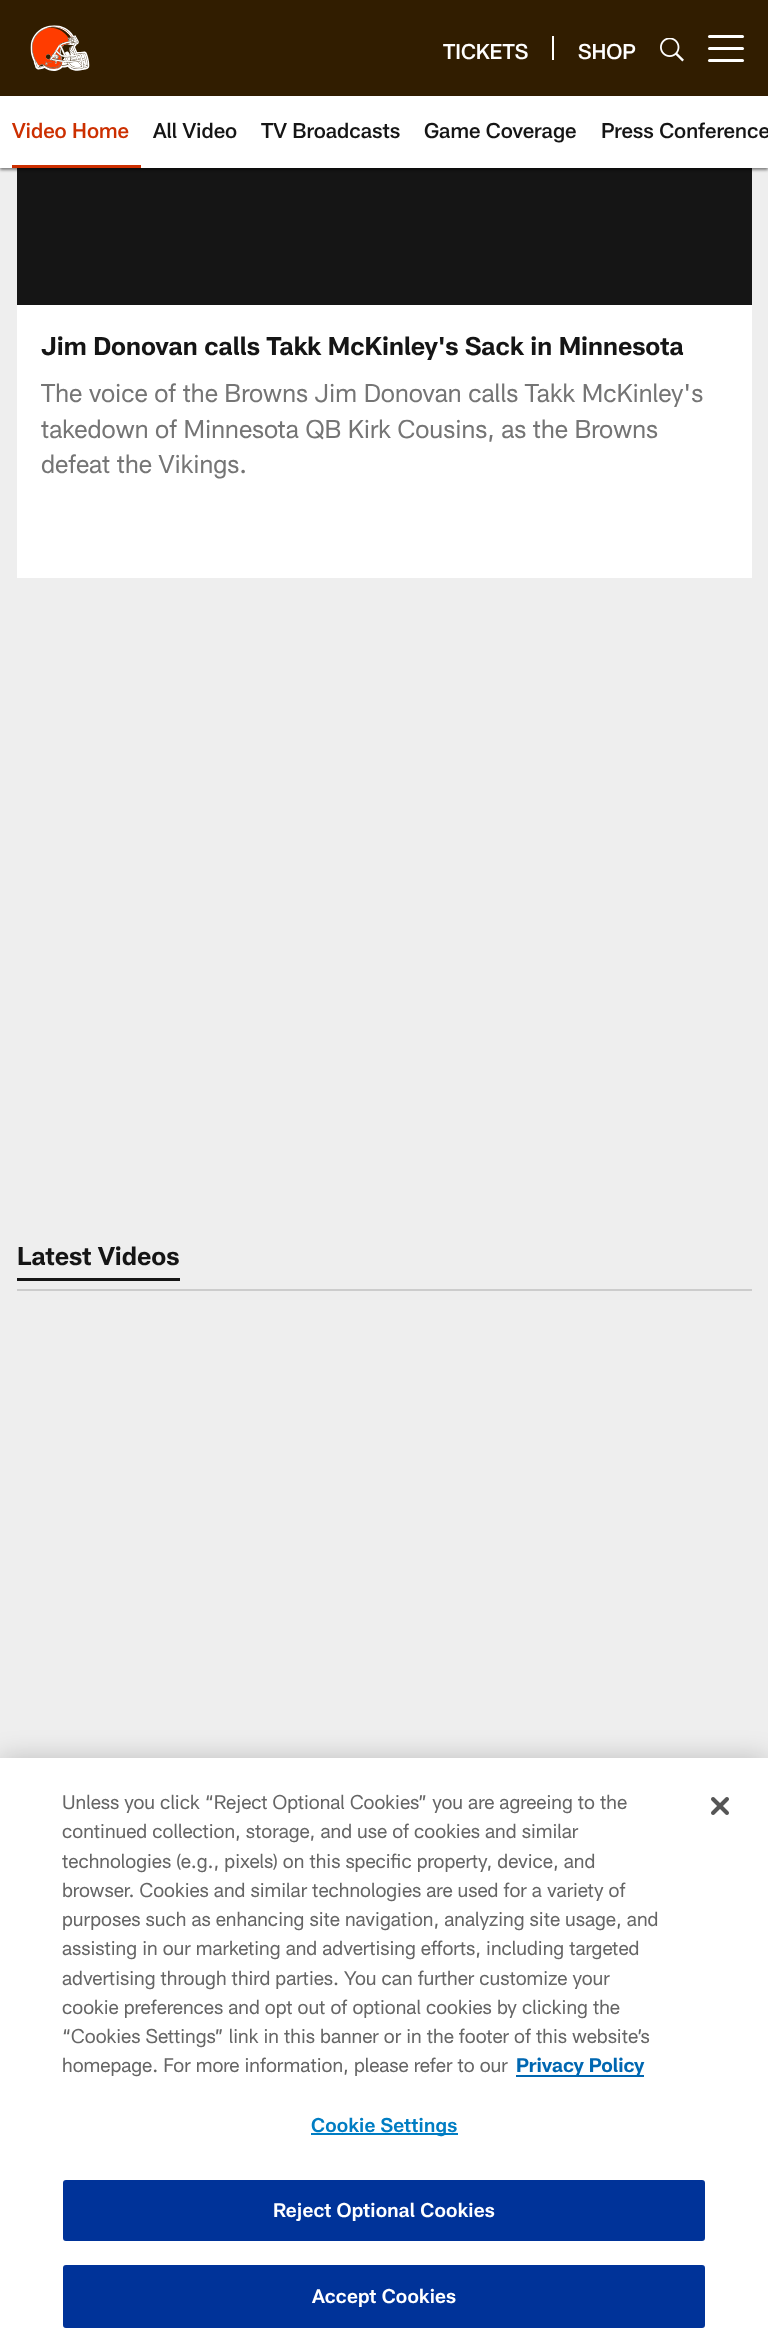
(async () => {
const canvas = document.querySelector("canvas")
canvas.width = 768
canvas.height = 2351
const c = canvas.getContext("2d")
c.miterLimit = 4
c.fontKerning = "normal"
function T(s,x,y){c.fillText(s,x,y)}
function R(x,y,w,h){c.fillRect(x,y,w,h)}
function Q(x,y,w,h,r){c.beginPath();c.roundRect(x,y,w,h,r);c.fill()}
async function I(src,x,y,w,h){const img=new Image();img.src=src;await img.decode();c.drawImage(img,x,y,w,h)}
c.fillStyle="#eee"
R(0,0,768,2351)
c.fillStyle="#311d00"
R(0,0,768,96)
await I("1.png",30,25,60,46)
c.font="500 21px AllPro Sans"
c.fillStyle="#fff"
T("TICKETS",443,59)
R(552,36,2,24)
T("SHOP",578,59)
await I("2.png",660,38,24,24)
Q(708,47,36,3,1.5)
Q(708,35,36,3,1.5)
Q(708,59,36,3,1.5)
c.fillStyle="#151515"
R(17,168,735,137)
c.fillStyle="#00000078"
c.filter="blur(1.5px)"
c.beginPath()
c.rect(0,98,768,72)
c.fill()
c.filter="none"
c.fillStyle="#fff"
R(0,96,768,72)
c.fillStyle="#cc2f00"
R(12,165,129,3)
T("Video Home",12,138)
c.fillStyle="#151515"
T("All Video",153,138)
T("TV Broadcasts",261,138)
T("Game Coverage",424,138)
T("Press Conference",601,138)
c.fillStyle="#fff"
R(17,305,735,273)
c.font="bold 25.3px AllPro Sans"
c.fillStyle="#151515"
T("Jim Donovan calls Takk McKinley's Sack in Minnesota",41,355)
c.font="25.3px AllPro Sans"
c.fillStyle="#757575"
T("The voice of the Browns Jim Donovan calls Takk McKinley's",41,402)
T("takedown of Minnesota QB Kirk Cousins, as the Browns",41,438)
T("defeat the Vikings.",41,473)
c.fillStyle="#ccc"
R(17,1289,735,2)
c.fillStyle="#151515"
R(17,1278,163,3)
c.font="bold 25.3px AllPro Sans"
T("Latest Videos",17,1265)
c.fillStyle="#00000033"
c.filter="blur(13.5px)"
c.beginPath()
c.rect(0,1758,768,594)
c.fill()
c.filter="none"
c.fillStyle="#fff"
R(0,1758,768,593)
c.font="19.5px AllPro Sans"
c.fillStyle="#666"
T("Unless you click “Reject Optional Cookies” you are agreeing to the",62,1809)
T("continued collection, storage, and use of cookies and similar",62,1838)
T("technologies (e.g., pixels) on this specific property, device, and",62,1868)
T("browser. Cookies and similar technologies are used for a variety of",62,1897)
T("purposes such as enhancing site navigation, analyzing site usage, and",62,1926)
T("assisting in our marketing and advertising efforts, including targeted",62,1955)
T("advertising through third parties. You can further customize your",62,1985)
T("cookie preferences and opt out of optional cookies by clicking the",62,2014)
T("“Cookies Settings” link in this banner or in the footer of this website’s",62,2043)
T("homepage. For more information, please refer to our",62,2072)
c.fillStyle="#0067b1"
R(516,2075,128,2)
c.font="bold 19.5px AllPro Sans"
T("Privacy Policy",516,2072)
c.fillStyle="#007dc3"
R(311,2133,147,2)
c.letterSpacing="0.2px"
c.font="600 19.5px AllPro Sans"
T("Cookie Settings",311,2132)
c.fillStyle="#039"
c.beginPath()
c.roundRect(64,2181,640,59,2)
c.fill()
c.strokeStyle="#039"
c.lineWidth=2
c.stroke()
c.fillStyle="#fff"
T("Reject Optional Cookies",273,2217)
c.fillStyle="#039"
c.beginPath()
c.roundRect(64,2266,640,61,2)
c.fill()
c.stroke()
c.fillStyle="#fff"
T("Accept Cookies",312,2303)
await I("3.png",711,1797,18,18)
})()
